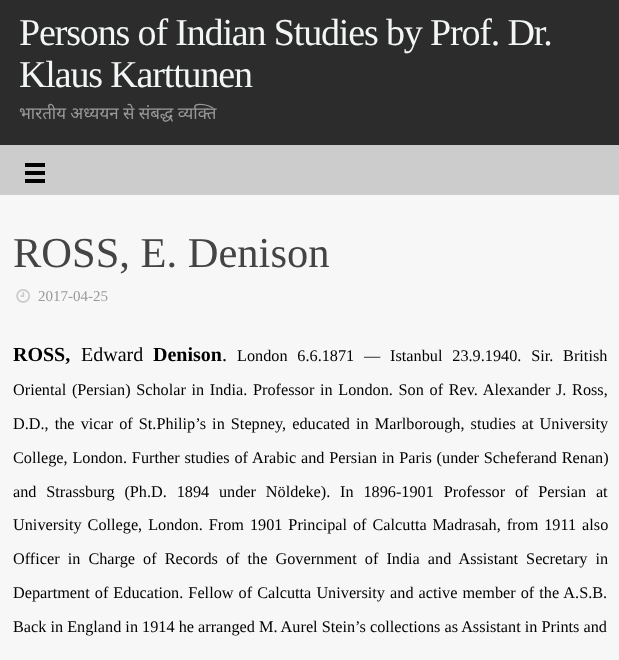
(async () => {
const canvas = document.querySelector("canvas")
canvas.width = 619
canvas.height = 660
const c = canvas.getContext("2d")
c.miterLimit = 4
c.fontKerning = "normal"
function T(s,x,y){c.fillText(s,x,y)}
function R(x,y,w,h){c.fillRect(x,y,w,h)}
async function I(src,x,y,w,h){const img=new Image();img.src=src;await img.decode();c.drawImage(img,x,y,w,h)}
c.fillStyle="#2c2c2c"
R(0,0,619,660)
c.letterSpacing="-1.15px"
c.font="38px Liberation Serif"
c.fillStyle="#f3f6f6"
T("Persons of Indian Studies by Prof. Dr.",19,45)
T("Klaus Karttunen",19,87)
c.letterSpacing="0px"
c.font="16.9px Noto Sans"
c.fillStyle="#999"
T("भारतीय अध्ययन से संबद्ध व्यक्ति",19,119)
c.fillStyle="#ccc"
R(0,145,619,50)
await I("1.png",25,163,20,20)
c.fillStyle="#f8f7f7"
R(0,195,619,465)
c.font="42.5px Liberation Serif"
c.fillStyle="#444"
T("ROSS, E. Denison",13,267)
await I("2.png",16,289,14,14)
c.font="15px Liberation Serif"
c.fillStyle="#999"
T("2017-04-25",38,301)
c.font="bold 20px Liberation Serif"
c.fillStyle="#000"
T("ROSS,",13,361)
c.font="20px Liberation Serif"
T("Edward",81,361)
c.font="bold 20px Liberation Serif"
T("Denison",153,361)
c.font="20px Liberation Serif"
T(".",222,361)
c.wordSpacing="5.75px"
c.font="16.25px Liberation Serif"
T("London 6.6.1871 — Istanbul 23.9.1940. Sir. British",237,361)
c.wordSpacing="1.6px"
T("Oriental (Persian) Scholar in India. Professor in London. Son of Rev. Alexander J. Ross,",13,395)
c.wordSpacing="2px"
T("D.D., the vicar of St.Philip’s in Stepney, educated in Marlborough, studies at University",13,429)
c.wordSpacing="0.75px"
T("College, London. Further studies of Arabic and Persian in Paris (under Scheferand Renan)",13,463)
c.wordSpacing="5.75px"
T("and Strassburg (Ph.D. 1894 under Nöldeke). In 1896-1901 Professor of Persian at",13,497)
c.wordSpacing="1.9px"
T("University College, London. From 1901 Principal of Calcutta Madrasah, from 1911 also",13,530)
c.wordSpacing="4px"
T("Officer in Charge of Records of the Government of India and Assistant Secretary in",13,564)
c.wordSpacing="1px"
T("Department of Education. Fellow of Calcutta University and active member of the A.S.B.",13,598)
c.wordSpacing="0px"
T("Back in England in 1914 he arranged M. Aurel Stein’s collections as Assistant in Prints and",13,632)
})()
